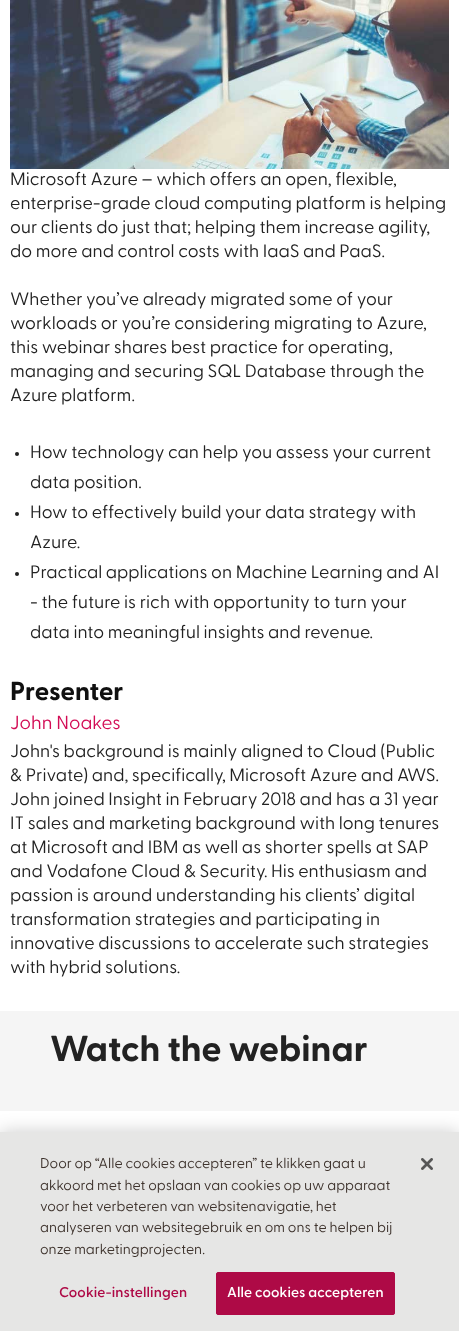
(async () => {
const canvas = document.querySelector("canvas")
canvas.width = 459
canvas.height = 1331
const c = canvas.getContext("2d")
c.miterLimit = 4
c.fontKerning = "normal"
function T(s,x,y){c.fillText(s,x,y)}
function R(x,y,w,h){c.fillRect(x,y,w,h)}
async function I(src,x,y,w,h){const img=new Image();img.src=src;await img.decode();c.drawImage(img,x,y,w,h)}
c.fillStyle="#fff"
R(0,0,459,1331)
await I("1.png",10,0,439,169)
c.font="18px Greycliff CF"
c.fillStyle="#222"
T("Microsoft Azure – which offers an open, flexible,",10,185)
T("enterprise-grade cloud computing platform is helping",10,209)
T("our clients do just that; helping them increase agility,",10,233)
T("do more and control costs with IaaS and PaaS.",10,257)
T("Whether you’ve already migrated some of your",10,305)
T("workloads or you’re considering migrating to Azure,",10,329)
T("this webinar shares best practice for operating,",10,353)
T("managing and securing SQL Database through the",10,377)
T("Azure platform.",10,401)
c.beginPath()
c.arc(17,454,2,0,7)
c.fill()
T("How technology can help you assess your current",30,458)
T("data position.",30,488)
c.beginPath()
c.arc(17,514,2,0,7)
c.fill()
T("How to effectively build your data strategy with",30,518)
T("Azure.",30,548)
c.beginPath()
c.arc(17,574,2,0,7)
c.fill()
T("Practical applications on Machine Learning and AI",30,578)
T("- the future is rich with opportunity to turn your",30,608)
T("data into meaningful insights and revenue.",30,638)
c.font="bold 26px Greycliff CF"
c.fillStyle="#101010"
T("Presenter",10,700)
c.font="19px Greycliff CF"
c.fillStyle="#d30c55"
T("John Noakes",10,729)
c.font="18px Greycliff CF"
c.fillStyle="#222"
T("John's background is mainly aligned to Cloud (Public",10,757)
T("& Private) and, specifically, Microsoft Azure and AWS.",10,781)
T("John joined Insight in February 2018 and has a 31 year",10,805)
T("IT sales and marketing background with long tenures",10,829)
T("at Microsoft and IBM as well as shorter spells at SAP",10,853)
T("and Vodafone Cloud & Security. His enthusiasm and",10,877)
T("passion is around understanding his clients’ digital",10,901)
T("transformation strategies and participating in",10,925)
T("innovative discussions to accelerate such strategies",10,949)
T("with hybrid solutions.",10,973)
c.fillStyle="#f5f5f5"
R(0,1011,459,100)
c.font="bold 36px Greycliff CF"
c.fillStyle="#222"
T("Watch the webinar",50,1061)
c.fillStyle="#00000033"
c.filter="blur(9px)"
c.beginPath()
c.rect(0,1132,459,199)
c.fill()
c.filter="none"
c.fillStyle="#e6e6e5"
R(0,1132,459,199)
c.font="14.25px Greycliff CF"
c.fillStyle="#3e332d"
T("Door op “Alle cookies accepteren” te klikken gaat u",40,1168)
T("akkoord met het opslaan van cookies op uw apparaat",40,1190)
T("voor het verbeteren van websitenavigatie, het",40,1211)
T("analyseren van websitegebruik en om ons te helpen bij",40,1232)
T("onze marketingprojecten.",40,1254)
c.letterSpacing="0.1px"
c.font="600 14.25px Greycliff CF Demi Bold"
c.fillStyle="#ae0a46"
T("Cookie-instellingen",59,1297)
c.beginPath()
c.roundRect(216.5,1272.5,178,42,1.5)
c.fill()
c.strokeStyle="#ae0a46"
c.stroke()
c.fillStyle="#fff"
T("Alle cookies accepteren",227,1297)
await I("2.png",421,1158,12,12)
})()
